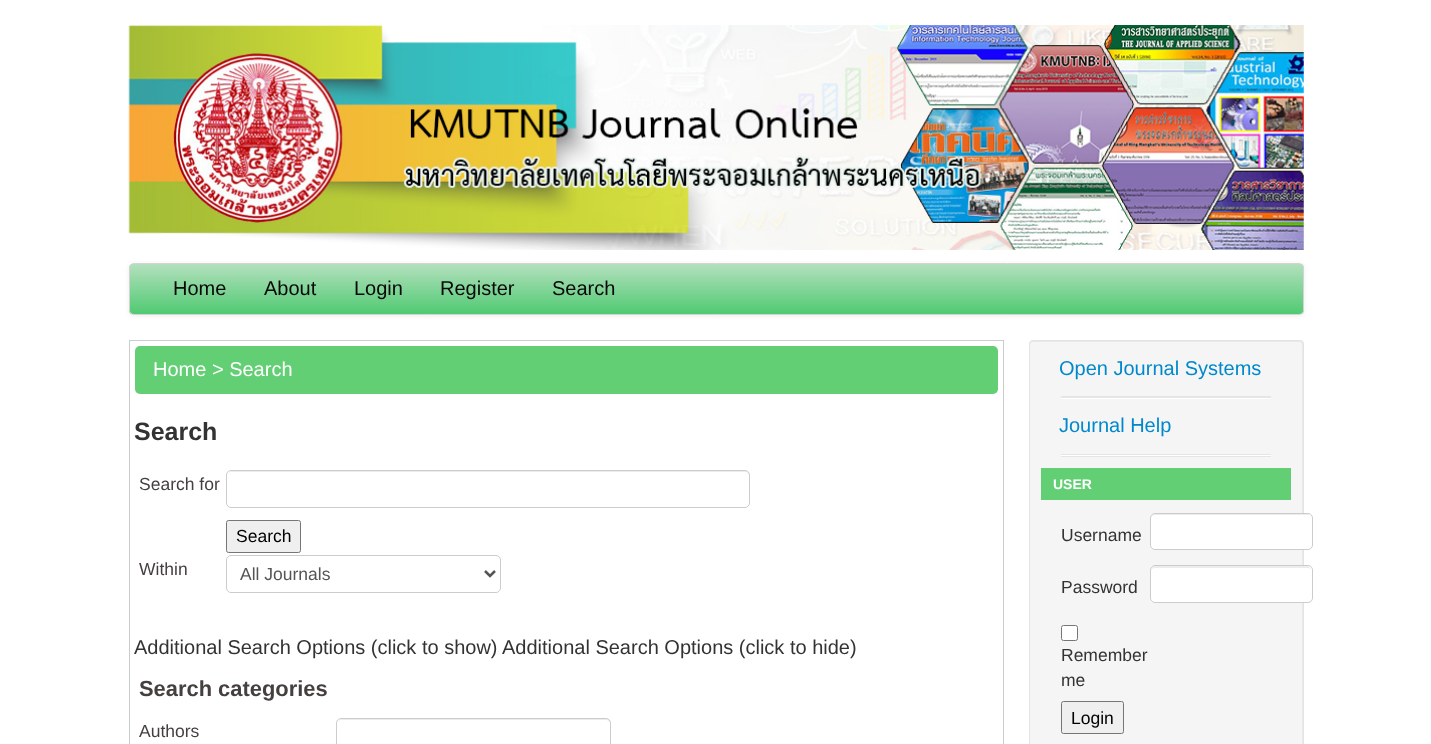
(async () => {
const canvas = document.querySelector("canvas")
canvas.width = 1431
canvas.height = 744
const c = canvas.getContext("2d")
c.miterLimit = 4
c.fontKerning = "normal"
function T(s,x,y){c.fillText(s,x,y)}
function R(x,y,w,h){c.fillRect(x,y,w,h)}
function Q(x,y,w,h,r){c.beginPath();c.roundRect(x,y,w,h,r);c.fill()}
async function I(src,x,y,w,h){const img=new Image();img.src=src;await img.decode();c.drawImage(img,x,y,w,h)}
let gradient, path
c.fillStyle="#fff"
R(0,0,1431,744)
await I("1.png",128,25,1176,225)
c.fillStyle="#00000012"
c.filter="blur(2.5px)"
c.beginPath()
c.roundRect(129,264,1175,52,5)
c.fill()
c.filter="none"
c.save()
c.beginPath()
c.roundRect(129,263,1175,52,5)
c.clip()
gradient = c.createLinearGradient(716,264,716,314)
gradient.addColorStop(0,"#b3e0bd")
gradient.addColorStop(1,"#50ca72")
c.fillStyle = gradient
R(129,264,1175,50)
c.restore()
c.beginPath()
c.roundRect(129.5,263.5,1174,51,4.5)
c.strokeStyle="#d4d4d4"
c.stroke()
c.font="20px Liberation Sans"
c.fillStyle="#080808"
T("Home",173,295)
T("About",264,295)
T("Login",354,295)
T("Register",440,295)
T("Search",552,295)
c.strokeStyle="#ccc"
c.strokeRect(129.5,340.5,874,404)
c.fillStyle="#62cf74"
Q(135,346,863,48,5)
c.fillStyle="#fff"
T("Home > Search",153,376)
c.font="bold 25px Liberation Sans"
c.fillStyle="#333"
T("Search",134,440)
c.font="17.5px Liberation Sans"
c.fillStyle="#463f3f"
T("Search for",139,490)
c.fillStyle="#ececec"
path = new Path2D("M231 472h514c2 0 4 2 4 4v-1c0-2-2-4-4-4h-513c-2 0-4 2-4 4v1c0-2 1-4 3-4z")
c.fill(path)
c.beginPath()
c.roundRect(226.5,470.5,523,37,4.5)
c.stroke()
c.fillStyle="#efefef"
c.beginPath()
c.roundRect(226.5,520.5,74,32,2)
c.fill()
c.strokeStyle="#767676"
c.stroke()
c.fillStyle="#000"
T("Search",236,542)
c.fillStyle="#463f3f"
T("Within",139,575)
c.beginPath()
c.roundRect(226.5,555.5,274,37,4.5)
c.strokeStyle="#ccc"
c.stroke()
path = new Path2D("M485 571l5 5l5-5")
c.strokeStyle="#555"
c.lineWidth=2.5
c.stroke(path)
c.fillStyle="#555"
T("All Journals",240,580)
c.font="20px Liberation Sans"
c.fillStyle="#333"
T("Additional Search Options (click to show)",134,654)
T("Additional Search Options (click to hide)",502,654)
c.font="bold 21.9px Liberation Sans"
c.fillStyle="#463f3f"
T("Search categories",139,696)
c.font="17.5px Liberation Sans"
T("Authors",139,737)
c.fillStyle="#ececec"
path = new Path2D("M341 720h265c2 0 4 2 4 4c0-3-1-5-4-5h-264c-3 0-4 2-4 5c0-2 1-4 3-4z")
c.fill(path)
c.beginPath()
c.roundRect(336.5,718.5,274,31,4.5)
c.strokeStyle="#ccc"
c.lineWidth=1
c.stroke()
c.fillStyle="#f5f5f5"
Q(1029,340,275,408,4)
c.fillStyle="#e9e9e9"
path = new Path2D("M1032 342h268c1 0 2 2 2 3v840c1-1 1-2 1-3v-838c0-2-1-3-3-3h-268c-1 0-2 1-2 3v1c0-1 1-3 2-3z")
c.fill(path)
c.beginPath()
c.roundRect(1029.5,340.5,274,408,3.5)
c.strokeStyle="#e3e3e3"
c.stroke()
c.font="20px Liberation Sans"
c.fillStyle="#08c"
T("Open Journal Systems",1059,375)
c.fillStyle="#e5e5e5"
R(1061,396,210,2)
c.fillStyle="#fff"
R(1061,398,210,1)
c.fillStyle="#08c"
T("Journal Help",1059,432)
c.fillStyle="#e5e5e5"
R(1061,454,210,3)
c.fillStyle="#fff"
R(1061,455,210,1)
c.fillStyle="#62cf74"
R(1041,468,250,32)
c.font="bold 14px Liberation Sans"
c.fillStyle="#fff"
T("USER",1053,489)
c.font="17.5px Liberation Sans"
c.fillStyle="#333"
T("Username",1061,541)
c.fillStyle="#fff"
Q(1150,513,163,37,5)
c.fillStyle="#ececec"
path = new Path2D("M1155 515h153c2 0 3 2 3 4c0-2-1-4-3-5h-154c-2 1-3 3-3 5c0-2 2-4 4-4z")
c.fill(path)
c.beginPath()
c.roundRect(1150.5,513.5,162,36,4.5)
c.strokeStyle="#ccc"
c.stroke()
c.fillStyle="#333"
T("Password",1061,593)
c.fillStyle="#fff"
Q(1150,565,163,38,5)
c.fillStyle="#ececec"
path = new Path2D("M1155 568h153c2 0 3 1 3 3c0-2-1-4-3-5h-154c-2 1-3 3-3 5c0-2 2-3 4-3z")
c.fill(path)
c.beginPath()
c.roundRect(1150.5,565.5,162,37,4.5)
c.stroke()
c.fillStyle="#fff"
c.beginPath()
c.roundRect(1061.5,625.5,16,15,2)
c.fill()
c.strokeStyle="#767676"
c.stroke()
c.fillStyle="#333"
T("Remember",1061,661)
T("me",1061,686)
c.fillStyle="#efefef"
c.beginPath()
c.roundRect(1061.5,701.5,62,32,2)
c.fill()
c.stroke()
c.fillStyle="#000"
T("Login",1071,724)
})()
